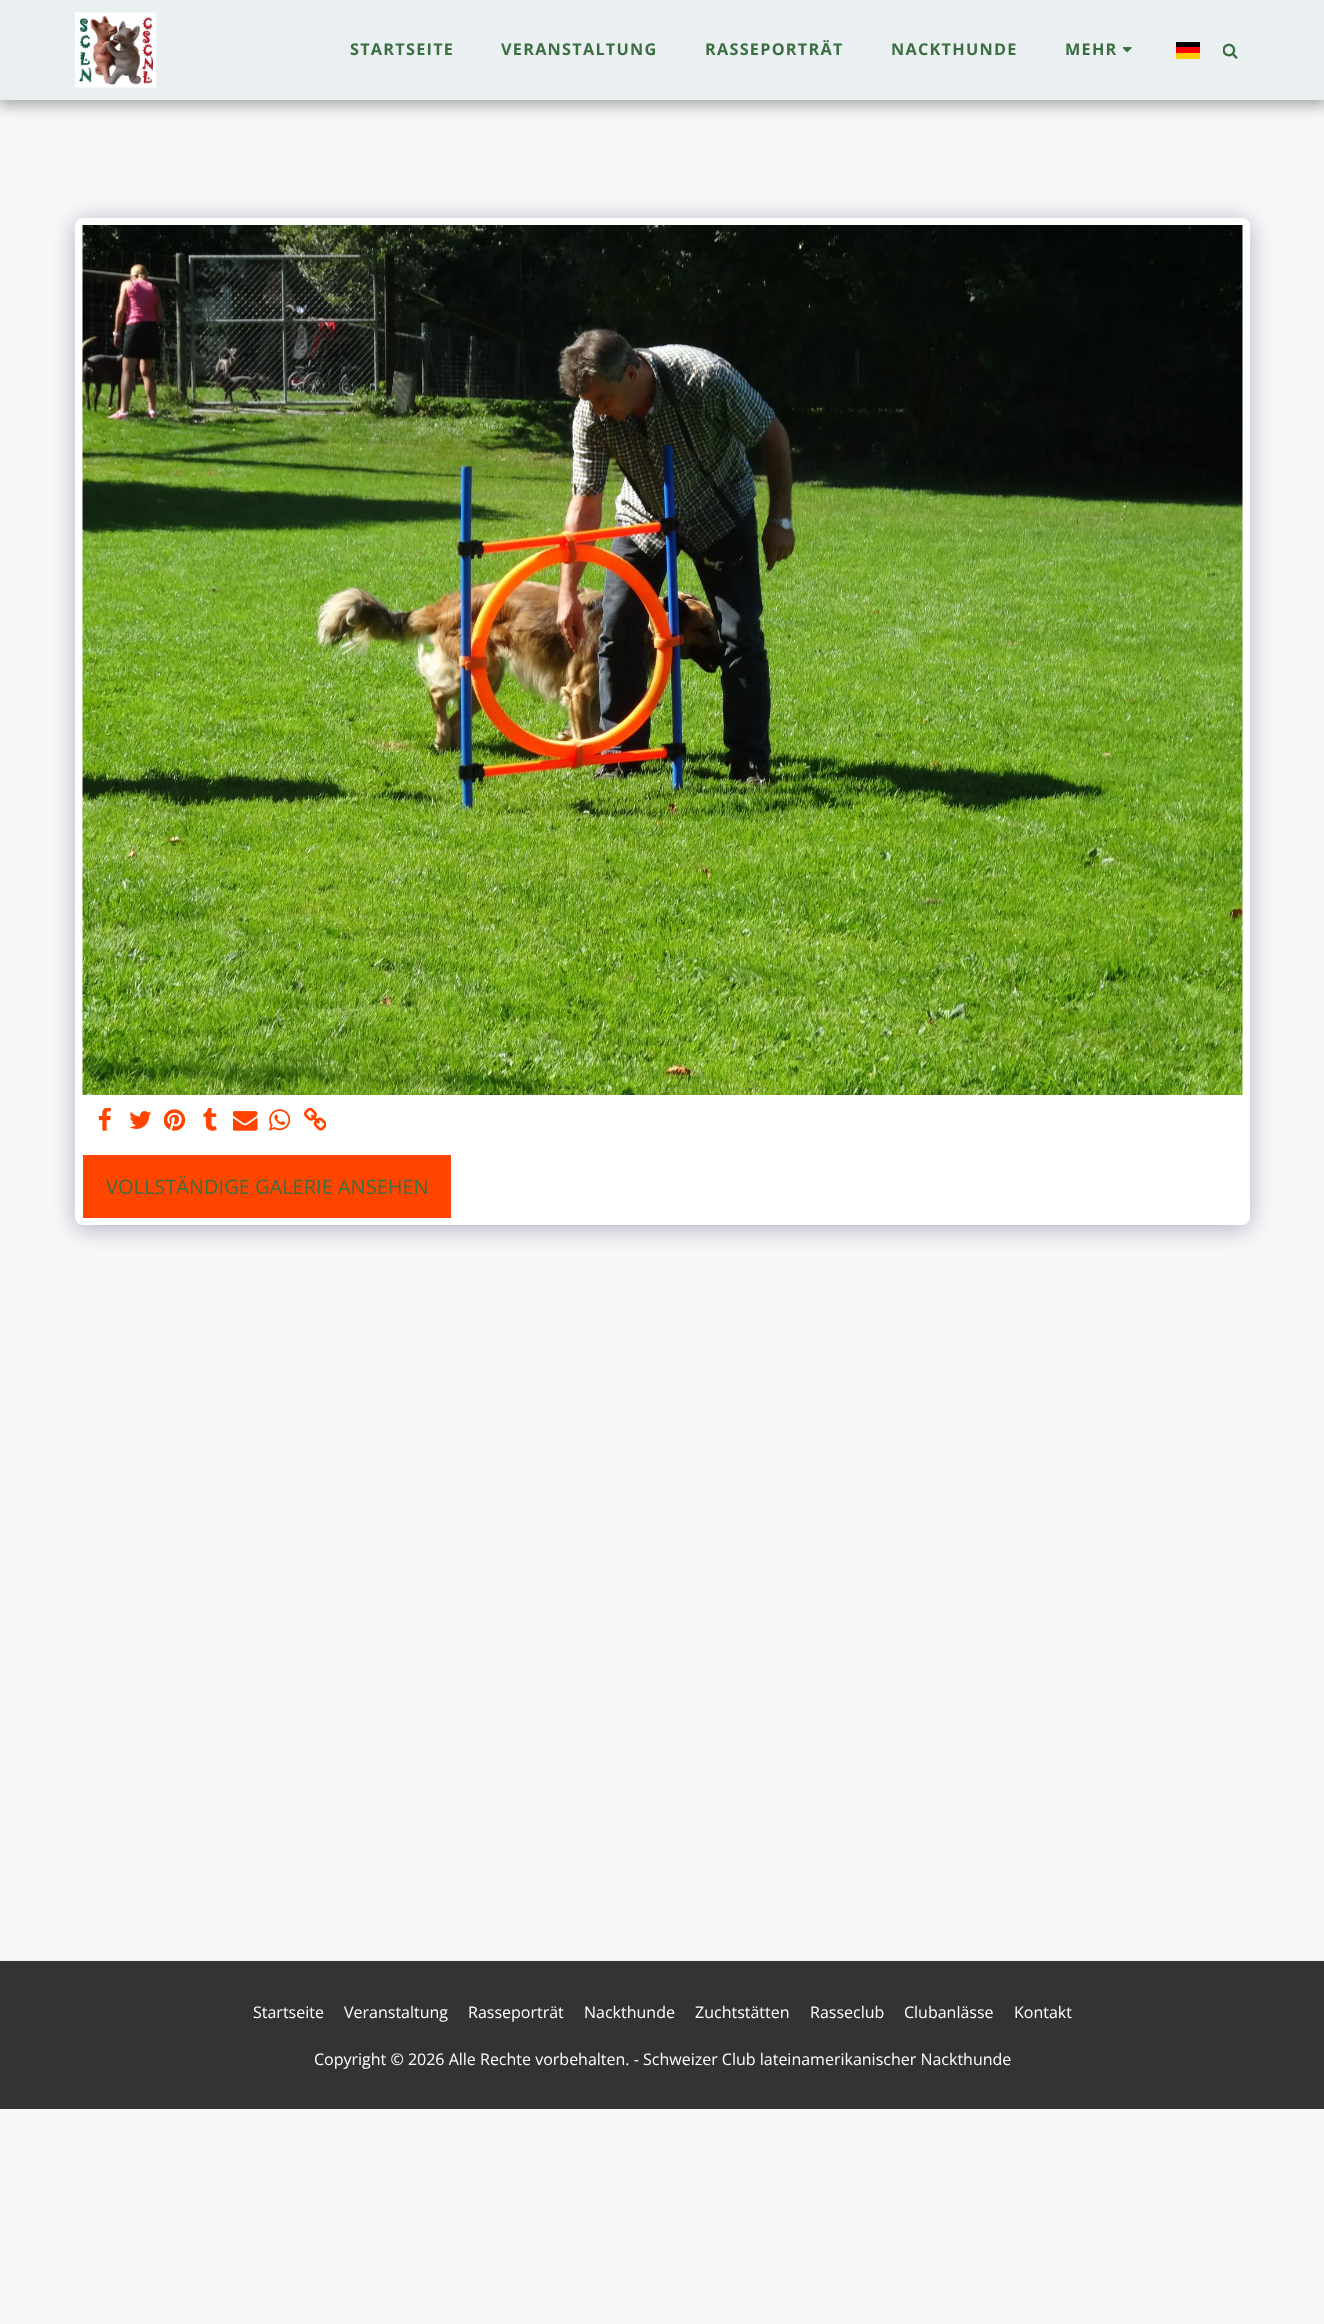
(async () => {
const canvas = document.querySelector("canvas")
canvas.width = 1324
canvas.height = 2324
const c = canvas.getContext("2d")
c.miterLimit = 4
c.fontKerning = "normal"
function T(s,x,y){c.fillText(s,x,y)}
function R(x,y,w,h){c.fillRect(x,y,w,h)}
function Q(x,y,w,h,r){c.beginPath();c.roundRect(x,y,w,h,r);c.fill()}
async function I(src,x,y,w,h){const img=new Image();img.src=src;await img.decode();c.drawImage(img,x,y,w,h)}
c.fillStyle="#f7f9f8"
R(0,0,1324,2324)
c.fillStyle="#00000059"
c.filter="blur(7.5px)"
c.beginPath()
c.rect(-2,0,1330,105)
c.fill()
c.filter="none"
c.fillStyle="#eaeff2"
R(0,0,1324,100)
await I("1.png",75,12,82,76)
c.letterSpacing="1.25px"
c.font="bold 16.25px Open Sans"
c.fillStyle="#3b6e40"
T("STARTSEITE",350,55)
T("VERANSTALTUNG",501,55)
T("RASSEPORTRÄT",705,55)
T("NACKTHUNDE",891,55)
T("MEHR",1065,55)
await I("2.png",1123,47,9,6)
c.fillStyle="#ffce00"
R(1176,53,24,6)
c.fillStyle="#000001"
R(1176,42,24,5)
c.fillStyle="#f00"
R(1176,47,24,6)
await I("3.png",1223,43,15,16)
c.fillStyle="#4d3f7a66"
c.filter="blur(12.5px)"
c.beginPath()
c.roundRect(75,221,1175,1008,8)
c.fill()
c.filter="none"
c.fillStyle="#fff"
Q(75,218,1175,1007,8)
await I("4.png",82,225,1161,870)
await I("5.png",98,1108,13,23)
await I("6.png",129,1111,22,18)
await I("7.png",164,1109,22,22)
await I("8.png",203,1108,14,23)
await I("9.png",233,1111,25,20)
await I("10.png",269,1109,22,22)
await I("11.png",304,1108,22,23)
c.fillStyle="#ff4500"
R(83,1155,368,63)
c.letterSpacing="0px"
c.font="20px Open Sans"
c.fillStyle="#3b6e40"
T("VOLLSTÄNDIGE GALERIE ANSEHEN",106,1194)
c.fillStyle="#eaeff2"
R(0,1960,1324,1)
c.fillStyle="#333"
R(0,1961,1324,148)
c.font="16px Open Sans"
c.fillStyle="#fff"
T("Startseite",253,2018)
T("Veranstaltung",344,2018)
T("Rasseporträt",468,2018)
T("Nackthunde",584,2018)
T("Zuchtstätten",695,2018)
T("Rasseclub",810,2018)
T("Clubanlässe",904,2018)
T("Kontakt",1014,2018)
T("Copyright © 2026 Alle Rechte vorbehalten. - Schweizer Club lateinamerikanischer Nackthunde",314,2065)
})()
